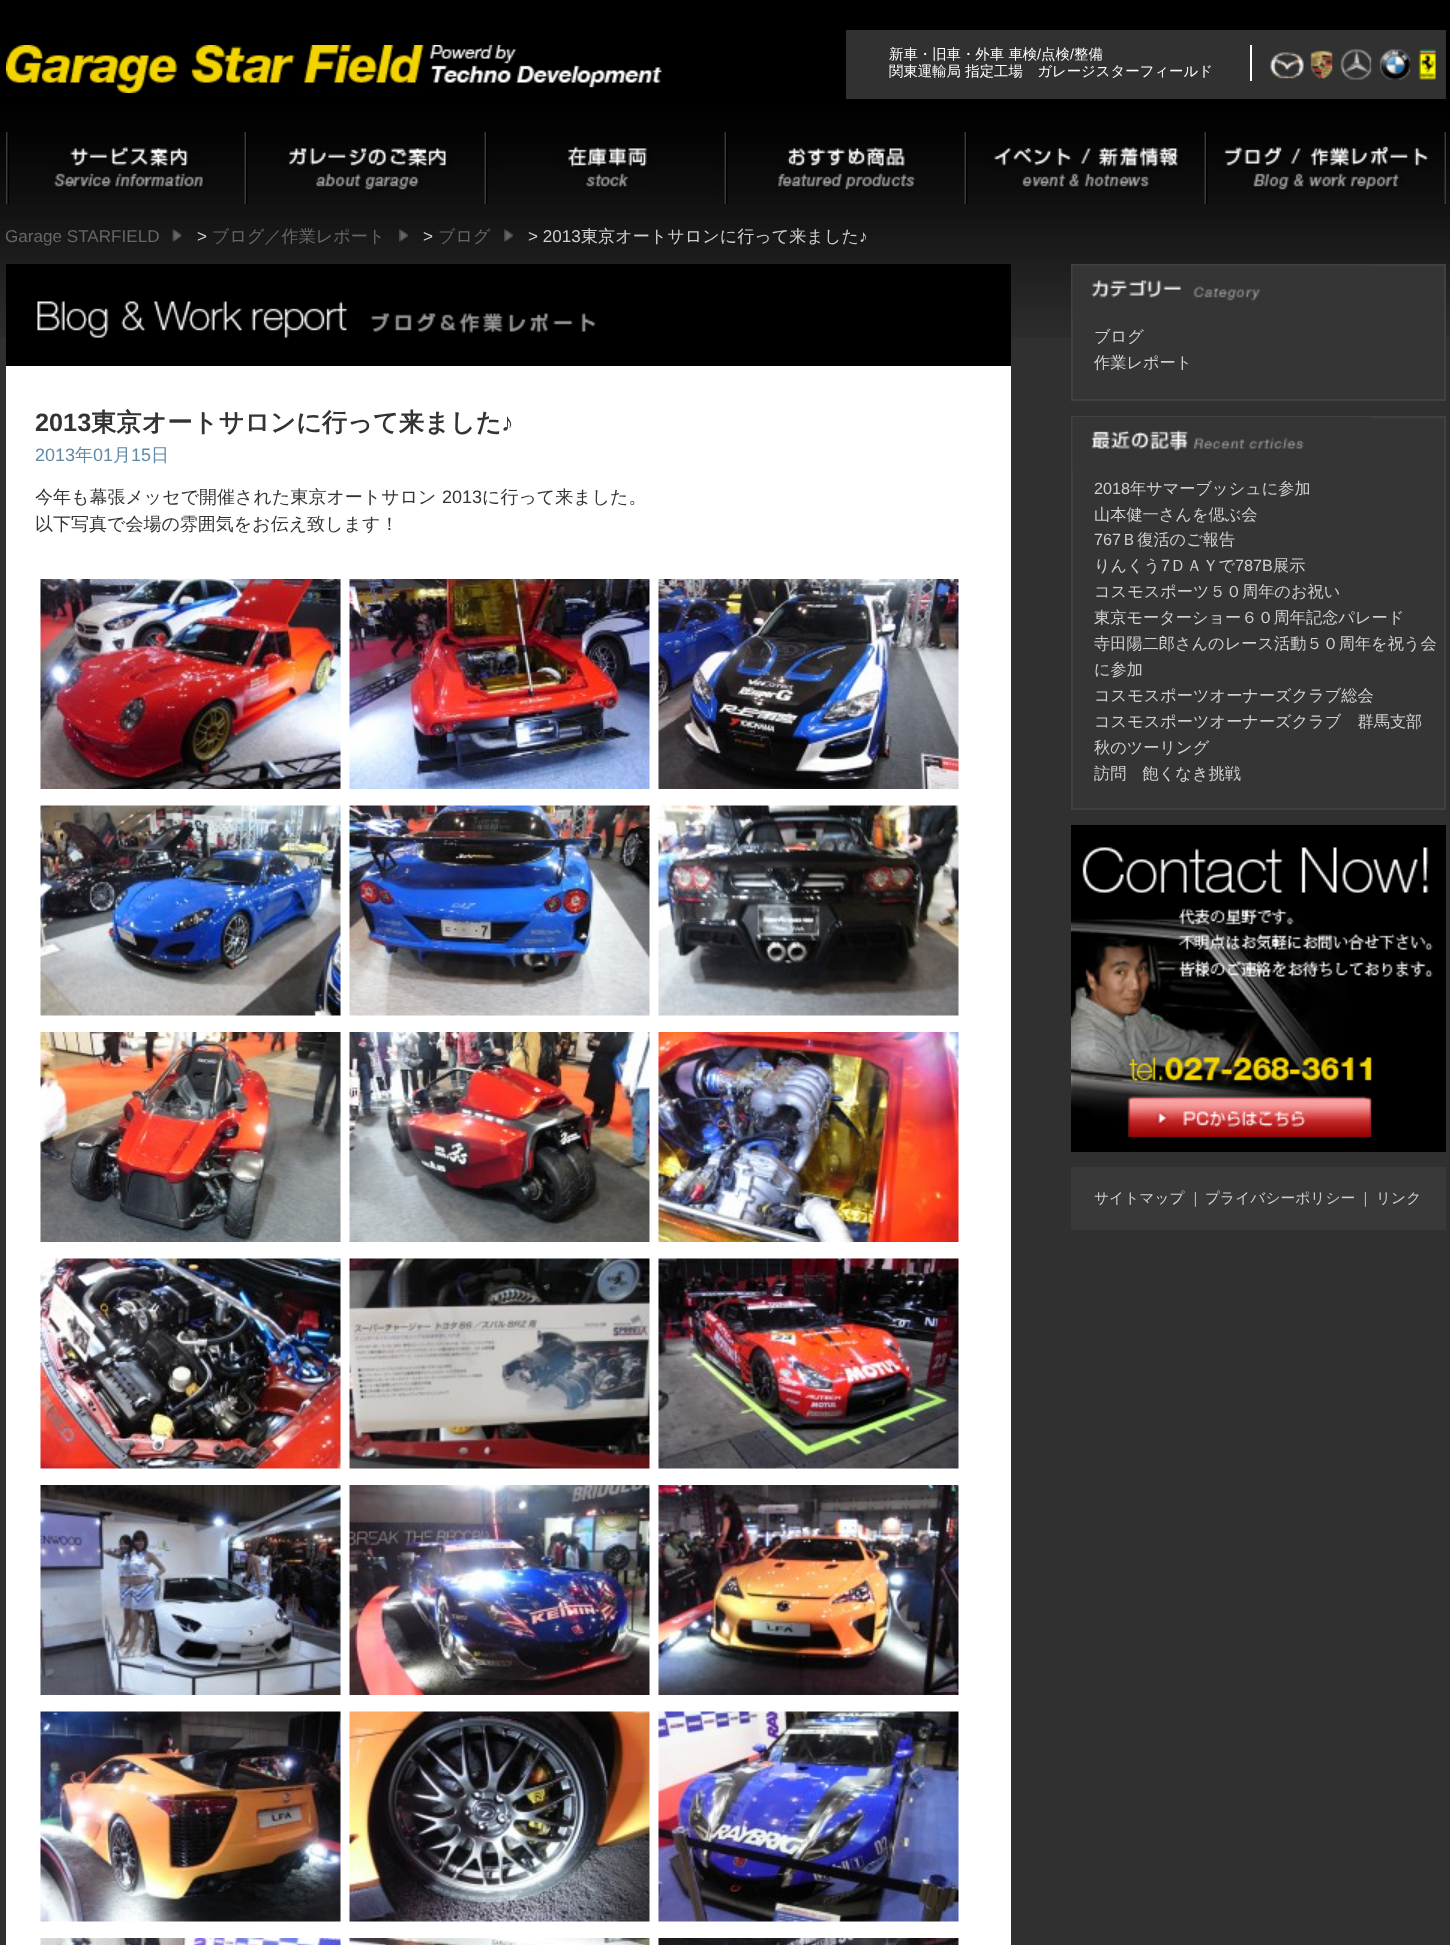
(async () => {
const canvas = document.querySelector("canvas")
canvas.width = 1450
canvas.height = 1945
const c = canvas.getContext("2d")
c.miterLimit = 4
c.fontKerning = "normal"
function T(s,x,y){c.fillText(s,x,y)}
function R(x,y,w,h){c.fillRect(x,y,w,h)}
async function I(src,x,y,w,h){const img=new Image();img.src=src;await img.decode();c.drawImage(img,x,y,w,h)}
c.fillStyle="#303030"
R(0,0,1450,1945)
await I("1.png",0,0,1450,337)
await I("2.png",6,45,656,48)
c.fillStyle="#313131"
R(846,30,600,69)
c.fillStyle="#fff"
R(1250,45,2,36)
c.font="500 14.4px WenQuanYi Zen Hei"
T("新車・旧車・外車 車検",889,59)
c.font="14.4px Liberation Sans"
T("/",1037,59)
c.font="500 14.4px WenQuanYi Zen Hei"
T("点検",1041,59)
c.font="14.4px Liberation Sans"
T("/",1070,59)
c.font="500 14.4px WenQuanYi Zen Hei"
T("整備",1074,59)
T("関東運輸局 指定工場　ガレージスターフィールド",889,76)
await I("3.png",1270,49,166,31)
await I("4.png",6,132,240,72)
await I("5.png",246,132,240,72)
await I("6.png",486,132,240,72)
await I("7.png",726,132,240,72)
await I("8.png",966,132,240,72)
await I("9.png",1206,132,240,72)
c.font="17.1px Liberation Sans"
c.fillStyle="#666"
T("Garage STARFIELD",5,242)
await I("10.png",172,229,10,13)
c.fillStyle="#d0d0d0"
T(">",197,242)
c.font="500 17.1px WenQuanYi Zen Hei"
c.fillStyle="#666"
T("ブログ／作業レポート",212,242)
await I("11.png",399,229,9,13)
c.font="17.1px Liberation Sans"
c.fillStyle="#d0d0d0"
T(">",423,242)
c.font="500 17.1px WenQuanYi Zen Hei"
c.fillStyle="#666"
T("ブログ",438,242)
await I("12.png",504,229,9,13)
c.font="17.1px Liberation Sans"
c.fillStyle="#d0d0d0"
T("> 2013",528,242)
c.font="500 17.1px WenQuanYi Zen Hei"
T("東京オートサロンに行って来ました",581,242)
c.font="17.1px Liberation Sans"
T("♪",859,242)
c.fillStyle="#fff"
R(6,366,1005,1579)
await I("13.png",6,264,1005,102)
c.font="bold 25.25px Liberation Sans"
c.fillStyle="#333"
T("2013",35,431)
c.font="bold 25.25px WenQuanYi Zen Hei"
T("東京オートサロンに行って来ました",91,431)
c.font="bold 25.25px Liberation Sans"
T("♪",501,431)
c.font="18px Liberation Sans"
c.fillStyle="#6089a7"
T("2013",35,461)
c.font="500 18px WenQuanYi Zen Hei"
T("年",75,461)
c.font="18px Liberation Sans"
T("01",93,461)
c.font="500 18px WenQuanYi Zen Hei"
T("月",113,461)
c.font="18px Liberation Sans"
T("15",131,461)
c.font="500 18px WenQuanYi Zen Hei"
T("日",151,461)
c.fillStyle="#333"
T("今年も幕張メッセで開催された東京オートサロン",35,503)
c.font="18px Liberation Sans"
T("2013",442,503)
c.font="500 18px WenQuanYi Zen Hei"
T("に行って来ました。",482,503)
T("以下写真で会場の雰囲気をお伝え致します！",35,530)
await I("14.png",40,579,301,210)
await I("15.png",349,579,301,210)
await I("16.png",658,579,301,210)
await I("17.png",40,805,301,211)
await I("18.png",349,805,301,211)
await I("19.png",658,805,301,211)
await I("20.png",40,1032,301,210)
await I("21.png",349,1032,301,210)
await I("22.png",658,1032,301,210)
await I("23.png",40,1258,301,211)
await I("24.png",349,1258,301,211)
await I("25.png",658,1258,301,211)
await I("26.png",40,1485,301,210)
await I("27.png",349,1485,301,210)
await I("28.png",658,1485,301,210)
await I("29.png",40,1711,301,211)
await I("30.png",349,1711,301,211)
await I("31.png",658,1711,301,211)
await I("32.png",40,1938,301,7)
await I("33.png",349,1938,301,7)
await I("34.png",658,1938,301,7)
c.fillStyle="#353535"
c.beginPath()
c.rect(1072,265,373,135)
c.fill()
c.strokeStyle="#414141"
c.lineWidth=2
c.stroke()
await I("35.png",1072,265,300,54)
c.font="500 16.2px WenQuanYi Zen Hei"
c.fillStyle="#d0d0d0"
T("ブログ",1094,342)
T("作業レポート",1094,368)
c.fillStyle="#353535"
c.beginPath()
c.rect(1072,417,373,392)
c.fill()
c.stroke()
await I("36.png",1072,417,301,54)
c.font="16.2px Liberation Sans"
c.fillStyle="#d0d0d0"
T("2018",1094,494)
c.font="500 16.2px WenQuanYi Zen Hei"
T("年サマーブッシュに参加",1130,494)
T("山本健一さんを偲ぶ会",1094,520)
c.font="16.2px Liberation Sans"
T("767",1094,545)
c.font="500 16.2px WenQuanYi Zen Hei"
T("Ｂ復活のご報告",1121,545)
T("りんくう",1094,571)
c.font="16.2px Liberation Sans"
T("7",1161,571)
c.font="500 16.2px WenQuanYi Zen Hei"
T("ＤＡＹで",1170,571)
c.font="16.2px Liberation Sans"
T("787B",1235,571)
c.font="500 16.2px WenQuanYi Zen Hei"
T("展示",1273,571)
T("コスモスポーツ５０周年のお祝い",1094,597)
T("東京モーターショー６０周年記念パレード",1094,623)
T("寺田陽二郎さんのレース活動５０周年を祝う会",1094,649)
T("に参加",1094,675)
T("コスモスポーツオーナーズクラブ総会",1094,701)
T("コスモスポーツオーナーズクラブ　群馬支部",1094,727)
T("秋のツーリング",1094,753)
T("訪問　飽くなき挑戦",1094,779)
await I("37.png",1071,825,375,327)
c.fillStyle="#393939"
R(1071,1167,375,63)
c.font="500 14.75px WenQuanYi Zen Hei"
c.fillStyle="#d0d0d0"
T("サイトマップ",1094,1203)
T("｜",1188,1203)
T("プライバシーポリシー",1205,1203)
T("｜",1358,1203)
T("リンク",1376,1203)
})()
